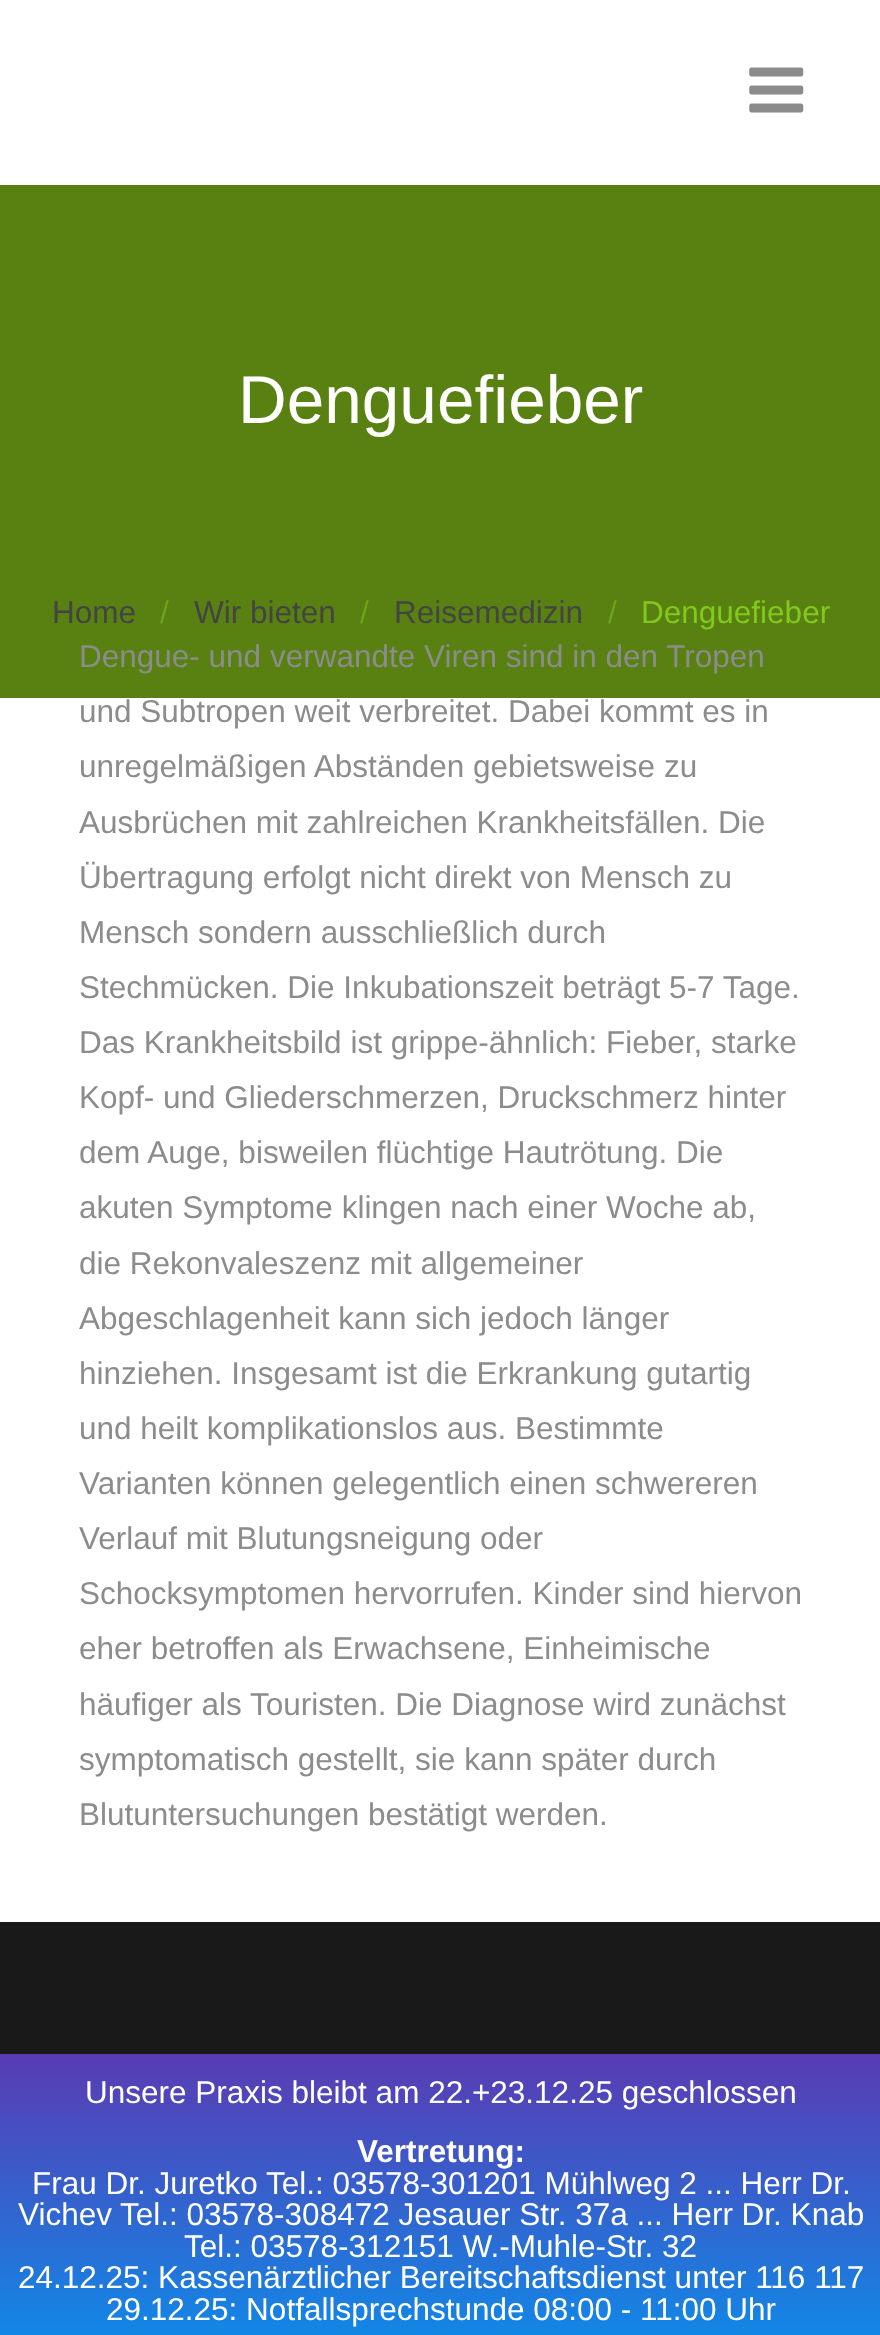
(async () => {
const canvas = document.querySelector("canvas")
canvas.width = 880
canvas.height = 2335
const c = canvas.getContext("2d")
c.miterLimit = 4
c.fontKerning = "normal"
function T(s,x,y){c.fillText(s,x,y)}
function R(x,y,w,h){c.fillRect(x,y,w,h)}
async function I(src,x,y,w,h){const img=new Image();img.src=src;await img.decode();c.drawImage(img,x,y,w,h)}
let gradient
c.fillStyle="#fff"
R(0,0,880,2335)
await I("1.png",749,67,55,46)
c.fillStyle="#588112"
R(0,185,880,513)
c.font="67.5px Liberation Sans"
c.fillStyle="#fff"
T("Denguefieber",238,423)
c.font="31.5px Liberation Sans"
c.fillStyle="#444"
T("Home",52,623)
c.fillStyle="#6da518"
T("/",160,623)
c.fillStyle="#444"
T("Wir bieten",194,623)
c.fillStyle="#6da518"
T("/",360,623)
c.fillStyle="#444"
T("Reisemedizin",394,623)
c.fillStyle="#6da518"
T("/",608,623)
c.fillStyle="#82c91e"
T("Denguefieber",641,623)
c.fillStyle="#8c8c8c"
T("Dengue- und verwandte Viren sind in den Tropen",79,667)
T("und Subtropen weit verbreitet. Dabei kommt es in",79,722)
T("unregelmäßigen Abständen gebietsweise zu",79,777)
T("Ausbrüchen mit zahlreichen Krankheitsfällen. Die",79,833)
T("Übertragung erfolgt nicht direkt von Mensch zu",79,888)
T("Mensch sondern ausschließlich durch",79,943)
T("Stechmücken. Die Inkubationszeit beträgt 5-7 Tage.",79,998)
T("Das Krankheitsbild ist grippe-ähnlich: Fieber, starke",79,1053)
T("Kopf- und Gliederschmerzen, Druckschmerz hinter",79,1108)
T("dem Auge, bisweilen flüchtige Hautrötung. Die",79,1163)
T("akuten Symptome klingen nach einer Woche ab,",79,1218)
T("die Rekonvaleszenz mit allgemeiner",79,1274)
T("Abgeschlagenheit kann sich jedoch länger",79,1329)
T("hinziehen. Insgesamt ist die Erkrankung gutartig",79,1384)
T("und heilt komplikationslos aus. Bestimmte",79,1439)
T("Varianten können gelegentlich einen schwereren",79,1494)
T("Verlauf mit Blutungsneigung oder",79,1549)
T("Schocksymptomen hervorrufen. Kinder sind hiervon",79,1604)
T("eher betroffen als Erwachsene, Einheimische",79,1659)
T("häufiger als Touristen. Die Diagnose wird zunächst",79,1715)
T("symptomatisch gestellt, sie kann später durch",79,1770)
T("Blutuntersuchungen bestätigt werden.",79,1825)
c.fillStyle="#191919"
R(0,1922,880,132)
gradient = c.createLinearGradient(441,2054,441,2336)
gradient.addColorStop(0,"#593bb3")
gradient.addColorStop(1,"#1287e6")
c.fillStyle = gradient
R(0,2054,880,281)
c.fillStyle="#fff"
T("Unsere Praxis bleibt am 22.+23.12.25 geschlossen",85,2103)
c.font="bold 31.5px Liberation Sans"
T("Vertretung:",357,2162)
c.font="31.5px Liberation Sans"
T("Frau Dr. Juretko",32,2194)
T("Tel.: 03578-301201 Mühlweg 2 ... Herr Dr.",266,2194)
T("Vichev",18,2225)
T("Tel.: 03578-308472 Jesauer Str. 37a ... Herr Dr. Knab",120,2225)
T("Tel.: 03578-312151 W.-Muhle-Str. 32",184,2257)
T("24.12.25: Kassenärztlicher Bereitschaftsdienst unter 116 117",18,2288)
T("29.12.25: Notfallsprechstunde 08:00 - 11:00 Uhr",106,2320)
})()
